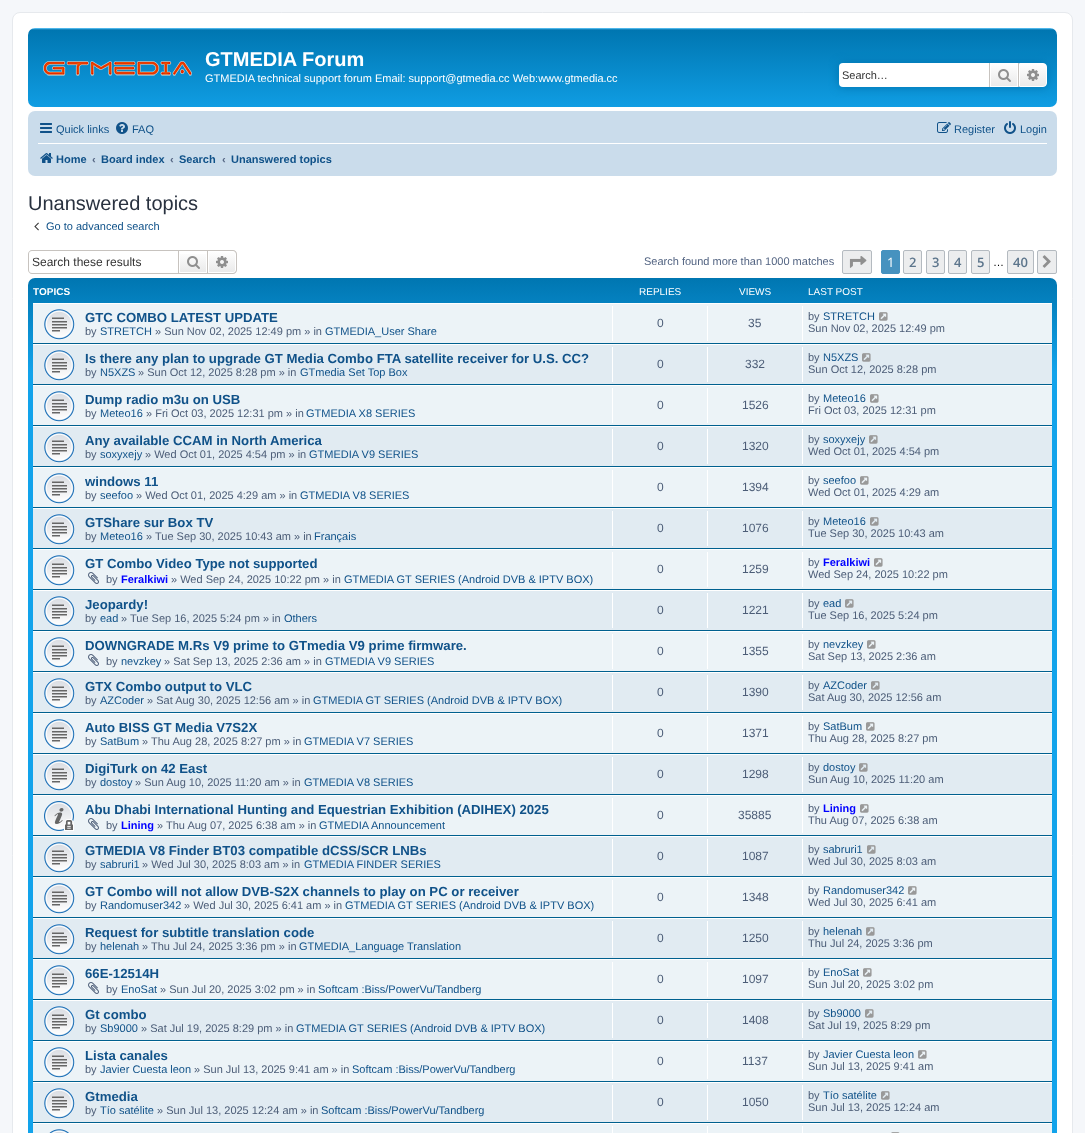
(async () => {
const canvas = document.querySelector("canvas")
canvas.width = 1085
canvas.height = 1133
const c = canvas.getContext("2d")
c.miterLimit = 4
c.fontKerning = "normal"
function T(s,x,y){c.fillText(s,x,y)}
function R(x,y,w,h){c.fillRect(x,y,w,h)}
function Q(x,y,w,h,r){c.beginPath();c.roundRect(x,y,w,h,r);c.fill()}
async function I(src,x,y,w,h){const img=new Image();img.src=src;await img.decode();c.drawImage(img,x,y,w,h)}
let gradient, path
c.fillStyle="#f5f7fa"
R(0,0,1085,1133)
c.fillStyle="#fff"
c.beginPath()
c.roundRect(12.5,12.5,1060,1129,7.5)
c.fill()
c.strokeStyle="#e6e9ed"
c.stroke()
gradient = c.createLinearGradient(543,28,543,120)
gradient.addColorStop(0,"#6aceff")
gradient.addColorStop(.02,"#0076b1")
gradient.addColorStop(1,"#12a3eb")
c.fillStyle = gradient
Q(28,28,1029,79,7)
c.font="bold 20px Liberation Sans"
c.fillStyle="#fff"
T("GTMEDIA Forum",205,66)
await I("1.png",43,61,149,15)
c.font="11px Liberation Sans"
T("GTMEDIA technical support forum Email: support@gtmedia.cc Web:www.gtmedia.cc",205,82)
c.fillStyle="#0075b0"
c.filter="blur(5px)"
c.beginPath()
c.roundRect(839,63,208,24,4)
c.fill()
c.filter="none"
c.fillStyle="#fff"
c.beginPath()
c.roundRect(839,63,150,24,[4,0,0,4])
c.fill()
c.fillStyle="#333"
T("Search…",842,79)
gradient = c.createLinearGradient(1004,63,1004,87)
gradient.addColorStop(0,"#fff")
gradient.addColorStop(1,"#e9e9e9")
c.fillStyle = gradient
R(991,64,26,22)
c.strokeStyle="#fff"
c.strokeRect(990.5,63.5,27,23)
c.fillStyle="#c7c3bf"
R(1018,63,1,24)
R(989,63,1,24)
await I("2.png",998,69,13,13)
gradient = c.createLinearGradient(1033,63,1033,87)
gradient.addColorStop(0,"#fff")
gradient.addColorStop(1,"#e9e9e9")
c.fillStyle = gradient
c.beginPath()
c.roundRect(1019.5,63.5,27,23,[0,3.5,3.5,0])
c.fill()
c.stroke()
await I("3.png",1027,69,12,12)
c.fillStyle="#cadceb"
Q(28,111,1029,65,7)
await I("4.png",40,123,12,10)
c.fillStyle="#105289"
T("Quick links",56,133)
await I("5.png",116,122,12,12)
T("FAQ",132,133)
await I("6.png",937,122,14,11)
T("Register",954,133)
await I("7.png",1004,121,12,13)
T("Login",1020,133)
c.fillStyle="#fff"
R(38,143,1009,1)
await I("8.png",40,153,13,10)
c.font="bold 11px Liberation Sans"
c.fillStyle="#105289"
T("Home",56,163)
c.fillStyle="#536482"
T("‹",92,163)
c.fillStyle="#105289"
T("Board index",101,163)
c.fillStyle="#536482"
T("‹",170,163)
c.fillStyle="#105289"
T("Search",179,163)
c.fillStyle="#536482"
T("‹",222,163)
c.fillStyle="#105289"
T("Unanswered topics",231,163)
c.font="20px Liberation Sans"
c.fillStyle="#28313f"
T("Unanswered topics",28,210)
await I("9.png",34,222,5,9)
c.font="11px Liberation Sans"
c.fillStyle="#105289"
T("Go to advanced search",46,230)
c.fillStyle="#c7c3bf"
path = new Path2D("M32 250h146v24h-146c-2 0-4-2-4-4v-16c0-2 2-4 4-4zm0 1h146v22h-146c-2 0-3-1-3-3v-16c0-2 1-3 3-3z")
c.fill(path,"evenodd")
c.font="12px Liberation Sans"
c.fillStyle="#333"
T("Search these results",32,266)
gradient = c.createLinearGradient(193,251,193,273)
gradient.addColorStop(0,"#fff")
gradient.addColorStop(1,"#e9e9e9")
c.fillStyle = gradient
R(180,254,26,18)
c.strokeStyle="#c7c3bf"
c.strokeRect(178.5,250.5,29,23)
await I("10.png",187,256,13,13)
gradient = c.createLinearGradient(222,251,222,273)
gradient.addColorStop(0,"#fff")
gradient.addColorStop(1,"#e9e9e9")
c.fillStyle = gradient
c.beginPath()
c.roundRect(208.5,251.5,27,21,[0,2.5,2.5,0])
c.fill()
c.strokeStyle="#fff"
c.stroke()
c.fillStyle="#c7c3bf"
path = new Path2D("M208 250h25c2 0 4 2 4 4v16c0 2-2 4-4 4h-25zm0 1h25c1.5 0 3 1.5 3 3v16c0 1.5-1.5 3-3 3h-25z")
c.fill(path,"evenodd")
await I("11.png",216,256,12,12)
c.font="11px Liberation Sans"
c.fillStyle="#536482"
T("Search found more than 1000 matches",644,265)
c.fillStyle="#ecedee"
c.beginPath()
c.roundRect(842.5,250.5,29,23,1.5)
c.fill()
c.strokeStyle="#b4bac0"
c.stroke()
await I("12.png",849,256,18,12)
c.fillStyle="#4692bf"
c.beginPath()
c.roundRect(881.5,250.5,18,23,1.5)
c.fill()
c.strokeStyle="#4692bf"
c.stroke()
c.font="13px Open Sans"
c.fillStyle="#fff"
T("1",887,267)
c.fillStyle="#ecedee"
c.beginPath()
c.roundRect(903.5,250.5,18,23,1.5)
c.fill()
c.strokeStyle="#b4bac0"
c.stroke()
c.font="600 13px Open Sans"
c.fillStyle="#5c758c"
T("2",909,267)
c.fillStyle="#ecedee"
c.beginPath()
c.roundRect(926.5,250.5,18,23,1.5)
c.fill()
c.stroke()
c.fillStyle="#5c758c"
T("3",932,267)
c.fillStyle="#ecedee"
c.beginPath()
c.roundRect(948.5,250.5,18,23,1.5)
c.fill()
c.stroke()
c.fillStyle="#5c758c"
T("4",954,267)
c.fillStyle="#ecedee"
c.beginPath()
c.roundRect(971.5,250.5,18,23,1.5)
c.fill()
c.stroke()
c.fillStyle="#5c758c"
T("5",977,267)
c.font="11px Liberation Sans"
c.fillStyle="#000"
T("…",993,266)
c.fillStyle="#ecedee"
c.beginPath()
c.roundRect(1007.5,250.5,26,23,1.5)
c.fill()
c.stroke()
c.font="600 13px Open Sans"
c.fillStyle="#5c758c"
T("40",1013,267)
c.fillStyle="#ecedee"
c.beginPath()
c.roundRect(1037.5,250.5,19,23,1.5)
c.fill()
c.stroke()
await I("13.png",1042,255,9,13)
gradient = c.createLinearGradient(542,278,543,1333)
gradient.addColorStop(0,"#6aceff")
gradient.addColorStop(0,"#0076b1")
gradient.addColorStop(.09,"#12a3eb")
gradient.addColorStop(1,"#12a3eb")
c.fillStyle = gradient
Q(28,278,1029,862,7)
c.font="bold 10px Liberation Sans"
c.fillStyle="#fff"
T("TOPICS",33,295)
c.font="10px Liberation Sans"
T("REPLIES",639,295)
T("VIEWS",739,295)
T("LAST POST",808,295)
c.fillStyle="#ecf3f7"
R(33,304,1019,39)
c.fillStyle="#fff"
R(33,303,1019,1)
c.fillStyle="#00608f"
R(33,343,1019,1)
await I("14.png",44,309,31,31)
c.font="bold 13.2px Liberation Sans"
c.fillStyle="#105289"
T("GTC COMBO LATEST UPDATE",85,322)
c.font="11px Liberation Sans"
c.fillStyle="#4c5d77"
T("by",85,335)
c.fillStyle="#105289"
T("STRETCH",100,335)
c.fillStyle="#4c5d77"
T("» Sun Nov 02, 2025 12:49 pm » in",155,335)
c.fillStyle="#105289"
T("GTMEDIA_User Share",325,335)
c.fillStyle="#fff"
R(612,306,1,35)
c.font="12px Liberation Sans"
c.fillStyle="#4c5d77"
T("0",657,327)
c.fillStyle="#fff"
R(707,306,1,35)
c.fillStyle="#4c5d77"
T("35",748,327)
c.fillStyle="#fff"
R(802,306,1,35)
c.font="11px Liberation Sans"
c.fillStyle="#4c5d77"
T("by",808,320)
c.fillStyle="#105289"
T("STRETCH",823,320)
await I("15.png",879,312,9,9)
c.fillStyle="#4c5d77"
T("Sun Nov 02, 2025 12:49 pm",808,332)
c.fillStyle="#e1ebf2"
R(33,345,1019,39)
c.fillStyle="#fff"
R(33,344,1019,1)
c.fillStyle="#00608f"
R(33,384,1019,1)
await I("16.png",44,350,31,31)
c.font="bold 13.2px Liberation Sans"
c.fillStyle="#105289"
T("Is there any plan to upgrade GT Media Combo FTA satellite receiver for U.S. CC?",85,363)
c.font="11px Liberation Sans"
c.fillStyle="#4c5d77"
T("by",85,376)
c.fillStyle="#105289"
T("N5XZS",100,376)
c.fillStyle="#4c5d77"
T("» Sun Oct 12, 2025 8:28 pm » in",138,376)
c.fillStyle="#105289"
T("GTmedia Set Top Box",300,376)
c.fillStyle="#fff"
R(612,347,1,35)
c.font="12px Liberation Sans"
c.fillStyle="#4c5d77"
T("0",657,368)
c.fillStyle="#fff"
R(707,347,1,35)
c.fillStyle="#4c5d77"
T("332",745,368)
c.fillStyle="#fff"
R(802,347,1,35)
c.font="11px Liberation Sans"
c.fillStyle="#4c5d77"
T("by",808,361)
c.fillStyle="#105289"
T("N5XZS",823,361)
await I("17.png",862,353,9,9)
c.fillStyle="#4c5d77"
T("Sun Oct 12, 2025 8:28 pm",808,373)
c.fillStyle="#ecf3f7"
R(33,386,1019,39)
c.fillStyle="#fff"
R(33,385,1019,1)
c.fillStyle="#00608f"
R(33,425,1019,1)
await I("14.png",44,391,31,31)
c.font="bold 13.2px Liberation Sans"
c.fillStyle="#105289"
T("Dump radio m3u on USB",85,404)
c.font="11px Liberation Sans"
c.fillStyle="#4c5d77"
T("by",85,417)
c.fillStyle="#105289"
T("Meteo16",100,417)
c.fillStyle="#4c5d77"
T("» Fri Oct 03, 2025 12:31 pm » in",146,417)
c.fillStyle="#105289"
T("GTMEDIA X8 SERIES",306,417)
c.fillStyle="#fff"
R(612,388,1,35)
c.font="12px Liberation Sans"
c.fillStyle="#4c5d77"
T("0",657,409)
c.fillStyle="#fff"
R(707,388,1,35)
c.fillStyle="#4c5d77"
T("1526",742,409)
c.fillStyle="#fff"
R(802,388,1,35)
c.font="11px Liberation Sans"
c.fillStyle="#4c5d77"
T("by",808,402)
c.fillStyle="#105289"
T("Meteo16",823,402)
await I("15.png",870,394,9,9)
c.fillStyle="#4c5d77"
T("Fri Oct 03, 2025 12:31 pm",808,414)
c.fillStyle="#e1ebf2"
R(33,427,1019,39)
c.fillStyle="#fff"
R(33,426,1019,1)
c.fillStyle="#00608f"
R(33,466,1019,1)
await I("16.png",44,432,31,31)
c.font="bold 13.2px Liberation Sans"
c.fillStyle="#105289"
T("Any available CCAM in North America",85,445)
c.font="11px Liberation Sans"
c.fillStyle="#4c5d77"
T("by",85,458)
c.fillStyle="#105289"
T("soxyxejy",100,458)
c.fillStyle="#4c5d77"
T("» Wed Oct 01, 2025 4:54 pm » in",145,458)
c.fillStyle="#105289"
T("GTMEDIA V9 SERIES",309,458)
c.fillStyle="#fff"
R(612,429,1,35)
c.font="12px Liberation Sans"
c.fillStyle="#4c5d77"
T("0",657,450)
c.fillStyle="#fff"
R(707,429,1,35)
c.fillStyle="#4c5d77"
T("1320",742,450)
c.fillStyle="#fff"
R(802,429,1,35)
c.font="11px Liberation Sans"
c.fillStyle="#4c5d77"
T("by",808,443)
c.fillStyle="#105289"
T("soxyxejy",823,443)
await I("17.png",869,435,9,9)
c.fillStyle="#4c5d77"
T("Wed Oct 01, 2025 4:54 pm",808,455)
c.fillStyle="#ecf3f7"
R(33,468,1019,39)
c.fillStyle="#fff"
R(33,467,1019,1)
c.fillStyle="#00608f"
R(33,507,1019,1)
await I("14.png",44,473,31,31)
c.font="bold 13.2px Liberation Sans"
c.fillStyle="#105289"
T("windows 11",85,486)
c.font="11px Liberation Sans"
c.fillStyle="#4c5d77"
T("by",85,499)
c.fillStyle="#105289"
T("seefoo",100,499)
c.fillStyle="#4c5d77"
T("» Wed Oct 01, 2025 4:29 am » in",136,499)
c.fillStyle="#105289"
T("GTMEDIA V8 SERIES",300,499)
c.fillStyle="#fff"
R(612,470,1,35)
c.font="12px Liberation Sans"
c.fillStyle="#4c5d77"
T("0",657,491)
c.fillStyle="#fff"
R(707,470,1,35)
c.fillStyle="#4c5d77"
T("1394",742,491)
c.fillStyle="#fff"
R(802,470,1,35)
c.font="11px Liberation Sans"
c.fillStyle="#4c5d77"
T("by",808,484)
c.fillStyle="#105289"
T("seefoo",823,484)
await I("15.png",860,476,9,9)
c.fillStyle="#4c5d77"
T("Wed Oct 01, 2025 4:29 am",808,496)
c.fillStyle="#e1ebf2"
R(33,509,1019,39)
c.fillStyle="#fff"
R(33,508,1019,1)
c.fillStyle="#00608f"
R(33,548,1019,1)
await I("16.png",44,514,31,31)
c.font="bold 13.2px Liberation Sans"
c.fillStyle="#105289"
T("GTShare sur Box TV",85,527)
c.font="11px Liberation Sans"
c.fillStyle="#4c5d77"
T("by",85,540)
c.fillStyle="#105289"
T("Meteo16",100,540)
c.fillStyle="#4c5d77"
T("» Tue Sep 30, 2025 10:43 am » in",146,540)
c.fillStyle="#105289"
T("Français",314,540)
c.fillStyle="#fff"
R(612,511,1,35)
c.font="12px Liberation Sans"
c.fillStyle="#4c5d77"
T("0",657,532)
c.fillStyle="#fff"
R(707,511,1,35)
c.fillStyle="#4c5d77"
T("1076",742,532)
c.fillStyle="#fff"
R(802,511,1,35)
c.font="11px Liberation Sans"
c.fillStyle="#4c5d77"
T("by",808,525)
c.fillStyle="#105289"
T("Meteo16",823,525)
await I("17.png",870,517,9,9)
c.fillStyle="#4c5d77"
T("Tue Sep 30, 2025 10:43 am",808,537)
c.fillStyle="#ecf3f7"
R(33,550,1019,39)
c.fillStyle="#fff"
R(33,549,1019,1)
c.fillStyle="#00608f"
R(33,589,1019,1)
await I("14.png",44,555,31,31)
c.font="bold 13.2px Liberation Sans"
c.fillStyle="#105289"
T("GT Combo Video Type not supported",85,568)
await I("18.png",88,572,11,12)
c.font="11px Liberation Sans"
c.fillStyle="#4c5d77"
T("by",106,583)
c.font="bold 11px Liberation Sans"
c.fillStyle="#00f"
T("Feralkiwi",121,583)
c.font="11px Liberation Sans"
c.fillStyle="#4c5d77"
T("» Wed Sep 24, 2025 10:22 pm » in",171,583)
c.fillStyle="#105289"
T("GTMEDIA GT SERIES (Android DVB & IPTV BOX)",344,583)
c.fillStyle="#fff"
R(612,552,1,35)
c.font="12px Liberation Sans"
c.fillStyle="#4c5d77"
T("0",657,573)
c.fillStyle="#fff"
R(707,552,1,35)
c.fillStyle="#4c5d77"
T("1259",742,573)
c.fillStyle="#fff"
R(802,552,1,35)
c.font="11px Liberation Sans"
c.fillStyle="#4c5d77"
T("by",808,566)
c.font="bold 11px Liberation Sans"
c.fillStyle="#00f"
T("Feralkiwi",823,566)
await I("15.png",874,558,9,9)
c.font="11px Liberation Sans"
c.fillStyle="#4c5d77"
T("Wed Sep 24, 2025 10:22 pm",808,578)
c.fillStyle="#e1ebf2"
R(33,591,1019,39)
c.fillStyle="#fff"
R(33,590,1019,1)
c.fillStyle="#00608f"
R(33,630,1019,1)
await I("16.png",44,596,31,31)
c.font="bold 13.2px Liberation Sans"
c.fillStyle="#105289"
T("Jeopardy!",85,609)
c.font="11px Liberation Sans"
c.fillStyle="#4c5d77"
T("by",85,622)
c.fillStyle="#105289"
T("ead",100,622)
c.fillStyle="#4c5d77"
T("» Tue Sep 16, 2025 5:24 pm » in",121,622)
c.fillStyle="#105289"
T("Others",284,622)
c.fillStyle="#fff"
R(612,593,1,35)
c.font="12px Liberation Sans"
c.fillStyle="#4c5d77"
T("0",657,614)
c.fillStyle="#fff"
R(707,593,1,35)
c.fillStyle="#4c5d77"
T("1221",742,614)
c.fillStyle="#fff"
R(802,593,1,35)
c.font="11px Liberation Sans"
c.fillStyle="#4c5d77"
T("by",808,607)
c.fillStyle="#105289"
T("ead",823,607)
await I("17.png",845,599,9,9)
c.fillStyle="#4c5d77"
T("Tue Sep 16, 2025 5:24 pm",808,619)
c.fillStyle="#ecf3f7"
R(33,632,1019,39)
c.fillStyle="#fff"
R(33,631,1019,1)
c.fillStyle="#00608f"
R(33,671,1019,1)
await I("14.png",44,637,31,31)
c.font="bold 13.2px Liberation Sans"
c.fillStyle="#105289"
T("DOWNGRADE M.Rs V9 prime to GTmedia V9 prime firmware.",85,650)
await I("18.png",88,654,11,12)
c.font="11px Liberation Sans"
c.fillStyle="#4c5d77"
T("by",106,665)
c.fillStyle="#105289"
T("nevzkey",121,665)
c.fillStyle="#4c5d77"
T("» Sat Sep 13, 2025 2:36 am » in",164,665)
c.fillStyle="#105289"
T("GTMEDIA V9 SERIES",325,665)
c.fillStyle="#fff"
R(612,634,1,35)
c.font="12px Liberation Sans"
c.fillStyle="#4c5d77"
T("0",657,655)
c.fillStyle="#fff"
R(707,634,1,35)
c.fillStyle="#4c5d77"
T("1355",742,655)
c.fillStyle="#fff"
R(802,634,1,35)
c.font="11px Liberation Sans"
c.fillStyle="#4c5d77"
T("by",808,648)
c.fillStyle="#105289"
T("nevzkey",823,648)
await I("15.png",867,640,9,9)
c.fillStyle="#4c5d77"
T("Sat Sep 13, 2025 2:36 am",808,660)
c.fillStyle="#e1ebf2"
R(33,673,1019,39)
c.fillStyle="#fff"
R(33,672,1019,1)
c.fillStyle="#00608f"
R(33,712,1019,1)
await I("16.png",44,678,31,31)
c.font="bold 13.2px Liberation Sans"
c.fillStyle="#105289"
T("GTX Combo output to VLC",85,691)
c.font="11px Liberation Sans"
c.fillStyle="#4c5d77"
T("by",85,704)
c.fillStyle="#105289"
T("AZCoder",100,704)
c.fillStyle="#4c5d77"
T("» Sat Aug 30, 2025 12:56 am » in",147,704)
c.fillStyle="#105289"
T("GTMEDIA GT SERIES (Android DVB & IPTV BOX)",313,704)
c.fillStyle="#fff"
R(612,675,1,35)
c.font="12px Liberation Sans"
c.fillStyle="#4c5d77"
T("0",657,696)
c.fillStyle="#fff"
R(707,675,1,35)
c.fillStyle="#4c5d77"
T("1390",742,696)
c.fillStyle="#fff"
R(802,675,1,35)
c.font="11px Liberation Sans"
c.fillStyle="#4c5d77"
T("by",808,689)
c.fillStyle="#105289"
T("AZCoder",823,689)
await I("17.png",871,681,9,9)
c.fillStyle="#4c5d77"
T("Sat Aug 30, 2025 12:56 am",808,701)
c.fillStyle="#ecf3f7"
R(33,714,1019,39)
c.fillStyle="#fff"
R(33,713,1019,1)
c.fillStyle="#00608f"
R(33,753,1019,1)
await I("14.png",44,719,31,31)
c.font="bold 13.2px Liberation Sans"
c.fillStyle="#105289"
T("Auto BISS GT Media V7S2X",85,732)
c.font="11px Liberation Sans"
c.fillStyle="#4c5d77"
T("by",85,745)
c.fillStyle="#105289"
T("SatBum",100,745)
c.fillStyle="#4c5d77"
T("» Thu Aug 28, 2025 8:27 pm » in",142,745)
c.fillStyle="#105289"
T("GTMEDIA V7 SERIES",304,745)
c.fillStyle="#fff"
R(612,716,1,35)
c.font="12px Liberation Sans"
c.fillStyle="#4c5d77"
T("0",657,737)
c.fillStyle="#fff"
R(707,716,1,35)
c.fillStyle="#4c5d77"
T("1371",742,737)
c.fillStyle="#fff"
R(802,716,1,35)
c.font="11px Liberation Sans"
c.fillStyle="#4c5d77"
T("by",808,730)
c.fillStyle="#105289"
T("SatBum",823,730)
await I("15.png",866,722,9,9)
c.fillStyle="#4c5d77"
T("Thu Aug 28, 2025 8:27 pm",808,742)
c.fillStyle="#e1ebf2"
R(33,755,1019,39)
c.fillStyle="#fff"
R(33,754,1019,1)
c.fillStyle="#00608f"
R(33,794,1019,1)
await I("16.png",44,760,31,31)
c.font="bold 13.2px Liberation Sans"
c.fillStyle="#105289"
T("DigiTurk on 42 East",85,773)
c.font="11px Liberation Sans"
c.fillStyle="#4c5d77"
T("by",85,786)
c.fillStyle="#105289"
T("dostoy",100,786)
c.fillStyle="#4c5d77"
T("» Sun Aug 10, 2025 11:20 am » in",135,786)
c.fillStyle="#105289"
T("GTMEDIA V8 SERIES",304,786)
c.fillStyle="#fff"
R(612,757,1,35)
c.font="12px Liberation Sans"
c.fillStyle="#4c5d77"
T("0",657,778)
c.fillStyle="#fff"
R(707,757,1,35)
c.fillStyle="#4c5d77"
T("1298",742,778)
c.fillStyle="#fff"
R(802,757,1,35)
c.font="11px Liberation Sans"
c.fillStyle="#4c5d77"
T("by",808,771)
c.fillStyle="#105289"
T("dostoy",823,771)
await I("17.png",859,763,9,9)
c.fillStyle="#4c5d77"
T("Sun Aug 10, 2025 11:20 am",808,783)
c.fillStyle="#ecf3f7"
R(33,796,1019,39)
c.fillStyle="#fff"
R(33,795,1019,1)
c.fillStyle="#00608f"
R(33,835,1019,1)
await I("19.png",44,801,30,30)
c.font="bold 13.2px Liberation Sans"
c.fillStyle="#105289"
T("Abu Dhabi International Hunting and Equestrian Exhibition (ADIHEX) 2025",85,814)
await I("18.png",88,818,11,12)
c.font="11px Liberation Sans"
c.fillStyle="#4c5d77"
T("by",106,829)
c.font="bold 11px Liberation Sans"
c.fillStyle="#00f"
T("Lining",121,829)
c.font="11px Liberation Sans"
c.fillStyle="#4c5d77"
T("» Thu Aug 07, 2025 6:38 am » in",157,829)
c.fillStyle="#105289"
T("GTMEDIA Announcement",319,829)
c.fillStyle="#fff"
R(612,798,1,35)
c.font="12px Liberation Sans"
c.fillStyle="#4c5d77"
T("0",657,819)
c.fillStyle="#fff"
R(707,798,1,35)
c.fillStyle="#4c5d77"
T("35885",738,819)
c.fillStyle="#fff"
R(802,798,1,35)
c.font="11px Liberation Sans"
c.fillStyle="#4c5d77"
T("by",808,812)
c.font="bold 11px Liberation Sans"
c.fillStyle="#00f"
T("Lining",823,812)
await I("15.png",860,804,9,9)
c.font="11px Liberation Sans"
c.fillStyle="#4c5d77"
T("Thu Aug 07, 2025 6:38 am",808,824)
c.fillStyle="#e1ebf2"
R(33,837,1019,39)
c.fillStyle="#fff"
R(33,836,1019,1)
c.fillStyle="#00608f"
R(33,876,1019,1)
await I("16.png",44,842,31,31)
c.font="bold 13.2px Liberation Sans"
c.fillStyle="#105289"
T("GTMEDIA V8 Finder BT03 compatible dCSS/SCR LNBs",85,855)
c.font="11px Liberation Sans"
c.fillStyle="#4c5d77"
T("by",85,868)
c.fillStyle="#105289"
T("sabruri1",100,868)
c.fillStyle="#4c5d77"
T("» Wed Jul 30, 2025 8:03 am » in",142,868)
c.fillStyle="#105289"
T("GTMEDIA FINDER SERIES",304,868)
c.fillStyle="#fff"
R(612,839,1,35)
c.font="12px Liberation Sans"
c.fillStyle="#4c5d77"
T("0",657,860)
c.fillStyle="#fff"
R(707,839,1,35)
c.fillStyle="#4c5d77"
T("1087",742,860)
c.fillStyle="#fff"
R(802,839,1,35)
c.font="11px Liberation Sans"
c.fillStyle="#4c5d77"
T("by",808,853)
c.fillStyle="#105289"
T("sabruri1",823,853)
await I("17.png",867,845,9,9)
c.fillStyle="#4c5d77"
T("Wed Jul 30, 2025 8:03 am",808,865)
c.fillStyle="#ecf3f7"
R(33,878,1019,39)
c.fillStyle="#fff"
R(33,877,1019,1)
c.fillStyle="#00608f"
R(33,917,1019,1)
await I("14.png",44,883,31,31)
c.font="bold 13.2px Liberation Sans"
c.fillStyle="#105289"
T("GT Combo will not allow DVB-S2X channels to play on PC or receiver",85,896)
c.font="11px Liberation Sans"
c.fillStyle="#4c5d77"
T("by",85,909)
c.fillStyle="#105289"
T("Randomuser342",100,909)
c.fillStyle="#4c5d77"
T("» Wed Jul 30, 2025 6:41 am » in",184,909)
c.fillStyle="#105289"
T("GTMEDIA GT SERIES (Android DVB & IPTV BOX)",345,909)
c.fillStyle="#fff"
R(612,880,1,35)
c.font="12px Liberation Sans"
c.fillStyle="#4c5d77"
T("0",657,901)
c.fillStyle="#fff"
R(707,880,1,35)
c.fillStyle="#4c5d77"
T("1348",742,901)
c.fillStyle="#fff"
R(802,880,1,35)
c.font="11px Liberation Sans"
c.fillStyle="#4c5d77"
T("by",808,894)
c.fillStyle="#105289"
T("Randomuser342",823,894)
await I("15.png",908,886,9,9)
c.fillStyle="#4c5d77"
T("Wed Jul 30, 2025 6:41 am",808,906)
c.fillStyle="#e1ebf2"
R(33,919,1019,39)
c.fillStyle="#fff"
R(33,918,1019,1)
c.fillStyle="#00608f"
R(33,958,1019,1)
await I("16.png",44,924,31,31)
c.font="bold 13.2px Liberation Sans"
c.fillStyle="#105289"
T("Request for subtitle translation code",85,937)
c.font="11px Liberation Sans"
c.fillStyle="#4c5d77"
T("by",85,950)
c.fillStyle="#105289"
T("helenah",100,950)
c.fillStyle="#4c5d77"
T("» Thu Jul 24, 2025 3:36 pm » in",142,950)
c.fillStyle="#105289"
T("GTMEDIA_Language Translation",299,950)
c.fillStyle="#fff"
R(612,921,1,35)
c.font="12px Liberation Sans"
c.fillStyle="#4c5d77"
T("0",657,942)
c.fillStyle="#fff"
R(707,921,1,35)
c.fillStyle="#4c5d77"
T("1250",742,942)
c.fillStyle="#fff"
R(802,921,1,35)
c.font="11px Liberation Sans"
c.fillStyle="#4c5d77"
T("by",808,935)
c.fillStyle="#105289"
T("helenah",823,935)
await I("17.png",866,927,9,9)
c.fillStyle="#4c5d77"
T("Thu Jul 24, 2025 3:36 pm",808,947)
c.fillStyle="#ecf3f7"
R(33,960,1019,39)
c.fillStyle="#fff"
R(33,959,1019,1)
c.fillStyle="#00608f"
R(33,999,1019,1)
await I("14.png",44,965,31,31)
c.font="bold 13.2px Liberation Sans"
c.fillStyle="#105289"
T("66E-12514H",85,978)
await I("18.png",88,982,11,12)
c.font="11px Liberation Sans"
c.fillStyle="#4c5d77"
T("by",106,993)
c.fillStyle="#105289"
T("EnoSat",121,993)
c.fillStyle="#4c5d77"
T("» Sun Jul 20, 2025 3:02 pm » in",160,993)
c.fillStyle="#105289"
T("Softcam :Biss/PowerVu/Tandberg",318,993)
c.fillStyle="#fff"
R(612,962,1,35)
c.font="12px Liberation Sans"
c.fillStyle="#4c5d77"
T("0",657,983)
c.fillStyle="#fff"
R(707,962,1,35)
c.fillStyle="#4c5d77"
T("1097",742,983)
c.fillStyle="#fff"
R(802,962,1,35)
c.font="11px Liberation Sans"
c.fillStyle="#4c5d77"
T("by",808,976)
c.fillStyle="#105289"
T("EnoSat",823,976)
await I("15.png",863,968,9,9)
c.fillStyle="#4c5d77"
T("Sun Jul 20, 2025 3:02 pm",808,988)
c.fillStyle="#e1ebf2"
R(33,1001,1019,39)
c.fillStyle="#fff"
R(33,1000,1019,1)
c.fillStyle="#00608f"
R(33,1040,1019,1)
await I("16.png",44,1006,31,31)
c.font="bold 13.2px Liberation Sans"
c.fillStyle="#105289"
T("Gt combo",85,1019)
c.font="11px Liberation Sans"
c.fillStyle="#4c5d77"
T("by",85,1032)
c.fillStyle="#105289"
T("Sb9000",100,1032)
c.fillStyle="#4c5d77"
T("» Sat Jul 19, 2025 8:29 pm » in",141,1032)
c.fillStyle="#105289"
T("GTMEDIA GT SERIES (Android DVB & IPTV BOX)",296,1032)
c.fillStyle="#fff"
R(612,1003,1,35)
c.font="12px Liberation Sans"
c.fillStyle="#4c5d77"
T("0",657,1024)
c.fillStyle="#fff"
R(707,1003,1,35)
c.fillStyle="#4c5d77"
T("1408",742,1024)
c.fillStyle="#fff"
R(802,1003,1,35)
c.font="11px Liberation Sans"
c.fillStyle="#4c5d77"
T("by",808,1017)
c.fillStyle="#105289"
T("Sb9000",823,1017)
await I("17.png",865,1009,9,9)
c.fillStyle="#4c5d77"
T("Sat Jul 19, 2025 8:29 pm",808,1029)
c.fillStyle="#ecf3f7"
R(33,1042,1019,39)
c.fillStyle="#fff"
R(33,1041,1019,1)
c.fillStyle="#00608f"
R(33,1081,1019,1)
await I("14.png",44,1047,31,31)
c.font="bold 13.2px Liberation Sans"
c.fillStyle="#105289"
T("Lista canales",85,1060)
c.font="11px Liberation Sans"
c.fillStyle="#4c5d77"
T("by",85,1073)
c.fillStyle="#105289"
T("Javier Cuesta leon",100,1073)
c.fillStyle="#4c5d77"
T("» Sun Jul 13, 2025 9:41 am » in",194,1073)
c.fillStyle="#105289"
T("Softcam :Biss/PowerVu/Tandberg",352,1073)
c.fillStyle="#fff"
R(612,1044,1,35)
c.font="12px Liberation Sans"
c.fillStyle="#4c5d77"
T("0",657,1065)
c.fillStyle="#fff"
R(707,1044,1,35)
c.fillStyle="#4c5d77"
T("1137",742,1065)
c.fillStyle="#fff"
R(802,1044,1,35)
c.font="11px Liberation Sans"
c.fillStyle="#4c5d77"
T("by",808,1058)
c.fillStyle="#105289"
T("Javier Cuesta leon",823,1058)
await I("15.png",918,1050,9,9)
c.fillStyle="#4c5d77"
T("Sun Jul 13, 2025 9:41 am",808,1070)
c.fillStyle="#e1ebf2"
R(33,1083,1019,39)
c.fillStyle="#fff"
R(33,1082,1019,1)
c.fillStyle="#00608f"
R(33,1122,1019,1)
await I("16.png",44,1088,31,31)
c.font="bold 13.2px Liberation Sans"
c.fillStyle="#105289"
T("Gtmedia",85,1101)
c.font="11px Liberation Sans"
c.fillStyle="#4c5d77"
T("by",85,1114)
c.fillStyle="#105289"
T("Tío satélite",100,1114)
c.fillStyle="#4c5d77"
T("» Sun Jul 13, 2025 12:24 am » in",157,1114)
c.fillStyle="#105289"
T("Softcam :Biss/PowerVu/Tandberg",321,1114)
c.fillStyle="#fff"
R(612,1085,1,35)
c.font="12px Liberation Sans"
c.fillStyle="#4c5d77"
T("0",657,1106)
c.fillStyle="#fff"
R(707,1085,1,35)
c.fillStyle="#4c5d77"
T("1050",742,1106)
c.fillStyle="#fff"
R(802,1085,1,35)
c.font="11px Liberation Sans"
c.fillStyle="#4c5d77"
T("by",808,1099)
c.fillStyle="#105289"
T("Tío satélite",823,1099)
await I("17.png",881,1091,9,9)
c.fillStyle="#4c5d77"
T("Sun Jul 13, 2025 12:24 am",808,1111)
c.fillStyle="#ecf3f7"
R(33,1124,1019,9)
c.fillStyle="#fff"
R(33,1123,1019,1)
await I("20.png",49,1129,21,4)
R(612,1126,1,7)
R(707,1126,1,7)
R(802,1126,1,7)
await I("21.png",891,1132,9,1)
})()
